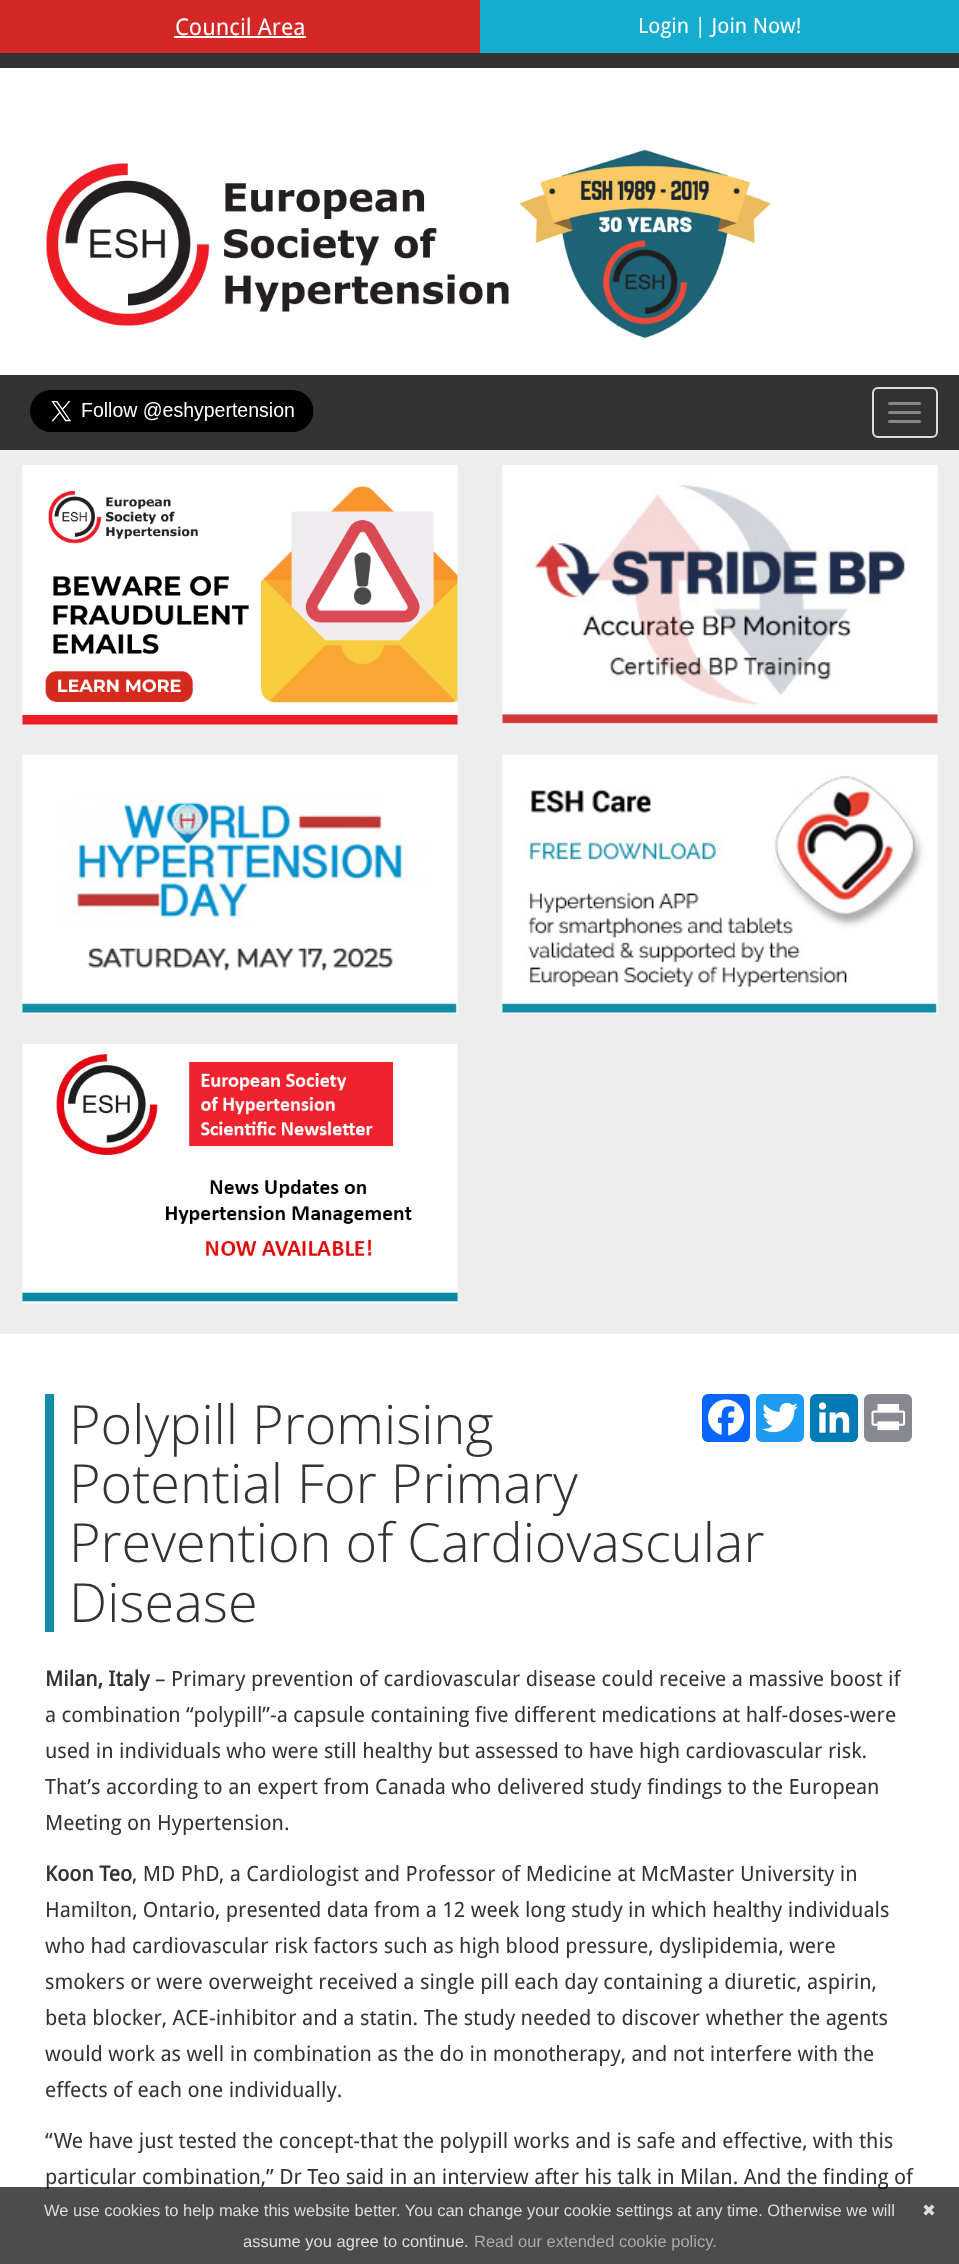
(async () => {
const canvas = document.querySelector("canvas")
canvas.width = 959
canvas.height = 2264
const c = canvas.getContext("2d")
c.miterLimit = 4
c.fontKerning = "normal"
function T(s,x,y){c.fillText(s,x,y)}
function R(x,y,w,h){c.fillRect(x,y,w,h)}
function Q(x,y,w,h,r){c.beginPath();c.roundRect(x,y,w,h,r);c.fill()}
async function I(src,x,y,w,h){const img=new Image();img.src=src;await img.decode();c.drawImage(img,x,y,w,h)}
c.fillStyle="#ededed"
R(0,0,959,2264)
c.fillStyle="#333"
R(0,53,959,15)
c.fillStyle="#d52725"
R(0,0,480,53)
c.font="23px Droid Sans"
c.fillStyle="#fff"
T("Council Area",175,35)
R(174,36,132,2)
c.fillStyle="#14adcf"
R(480,0,479,53)
c.font="21px Droid Sans"
c.fillStyle="#fff"
T("Login | Join Now!",638,33)
R(0,68,959,307)
await I("1.png",46,163,463,163)
await I("2.png",519,149,252,190)
c.fillStyle="#333"
R(0,375,959,75)
await I("3.png",30,390,284,42)
c.beginPath()
c.roundRect(873,388,64,49,5)
c.strokeStyle="#ddd"
c.lineWidth=2
c.stroke()
c.fillStyle="#888"
Q(888,402,33,3,1.5)
Q(888,411,33,3,1.5)
Q(888,420,33,3,1.5)
await I("4.png",22,465,436,260)
await I("5.png",502,465,436,260)
await I("6.png",22,754,436,260)
await I("7.png",502,754,436,260)
await I("8.png",22,1044,436,260)
c.fillStyle="#fff"
R(0,1334,959,930)
c.fillStyle="#138ca7"
R(45,1394,9,238)
c.font="300 54px Open Sans"
c.fillStyle="#333"
T("Polypill Promising",69,1444)
T("Potential For Primary",69,1503)
T("Prevention of Cardiovascular",69,1562)
T("Disease",69,1622)
c.fillStyle="#0866ff"
Q(702,1394,48,48,6)
await I("9.png",708,1399,36,37)
c.fillStyle="#1d9bf0"
Q(756,1394,48,48,6)
await I("10.png",762,1402,36,31)
c.fillStyle="#007bb5"
Q(810,1394,48,48,6)
await I("11.png",818,1402,32,31)
c.fillStyle="#888990"
Q(864,1394,48,48,6)
await I("12.png",871,1404,35,27)
c.font="bold 21px Droid Sans"
c.fillStyle="#333"
T("Milan, Italy",45,1686)
c.font="21px Droid Sans"
T("– Primary prevention of cardiovascular disease could receive a massive boost if",155,1686)
T("a combination “polypill”-a capsule containing five different medications at half-doses-were",45,1722)
T("used in individuals who were still healthy but assessed to have high cardiovascular risk.",45,1758)
T("That’s according to an expert from Canada who delivered study findings to the European",45,1794)
T("Meeting on Hypertension.",45,1830)
c.font="bold 21px Droid Sans"
T("Koon Teo",45,1881)
c.font="21px Droid Sans"
T(", MD PhD, a Cardiologist and Professor of Medicine at McMaster University in",132,1881)
T("Hamilton, Ontario, presented data from a 12 week long study in which healthy individuals",45,1917)
T("who had cardiovascular risk factors such as high blood pressure, dyslipidemia, were",45,1953)
T("smokers or were overweight received a single pill each day containing a diuretic, aspirin,",45,1989)
T("beta blocker, ACE-inhibitor and a statin. The study needed to discover whether the agents",45,2025)
T("would work as well in combination as the do in monotherapy, and not interfere with the",45,2061)
T("effects of each one individually.",45,2097)
T("“We have just tested the concept-that the polypill works and is safe and effective, with this",45,2148)
T("particular combination,” Dr Teo said in an interview after his talk in Milan. And the finding of",45,2184)
c.fillStyle="#000000b3"
R(0,2187,959,77)
c.font="16.5px Liberation Sans"
c.fillStyle="#ddd"
T("We use cookies to help make this website better. You can change your cookie settings at any time. Otherwise we will",44,2216)
c.font="16.5px DejaVu Sans"
T("✖",922,2216)
c.font="16.5px Liberation Sans"
T("assume you agree to continue.",243,2247)
c.fillStyle="#aaa"
T("Read our extended cookie policy.",474,2247)
})()
